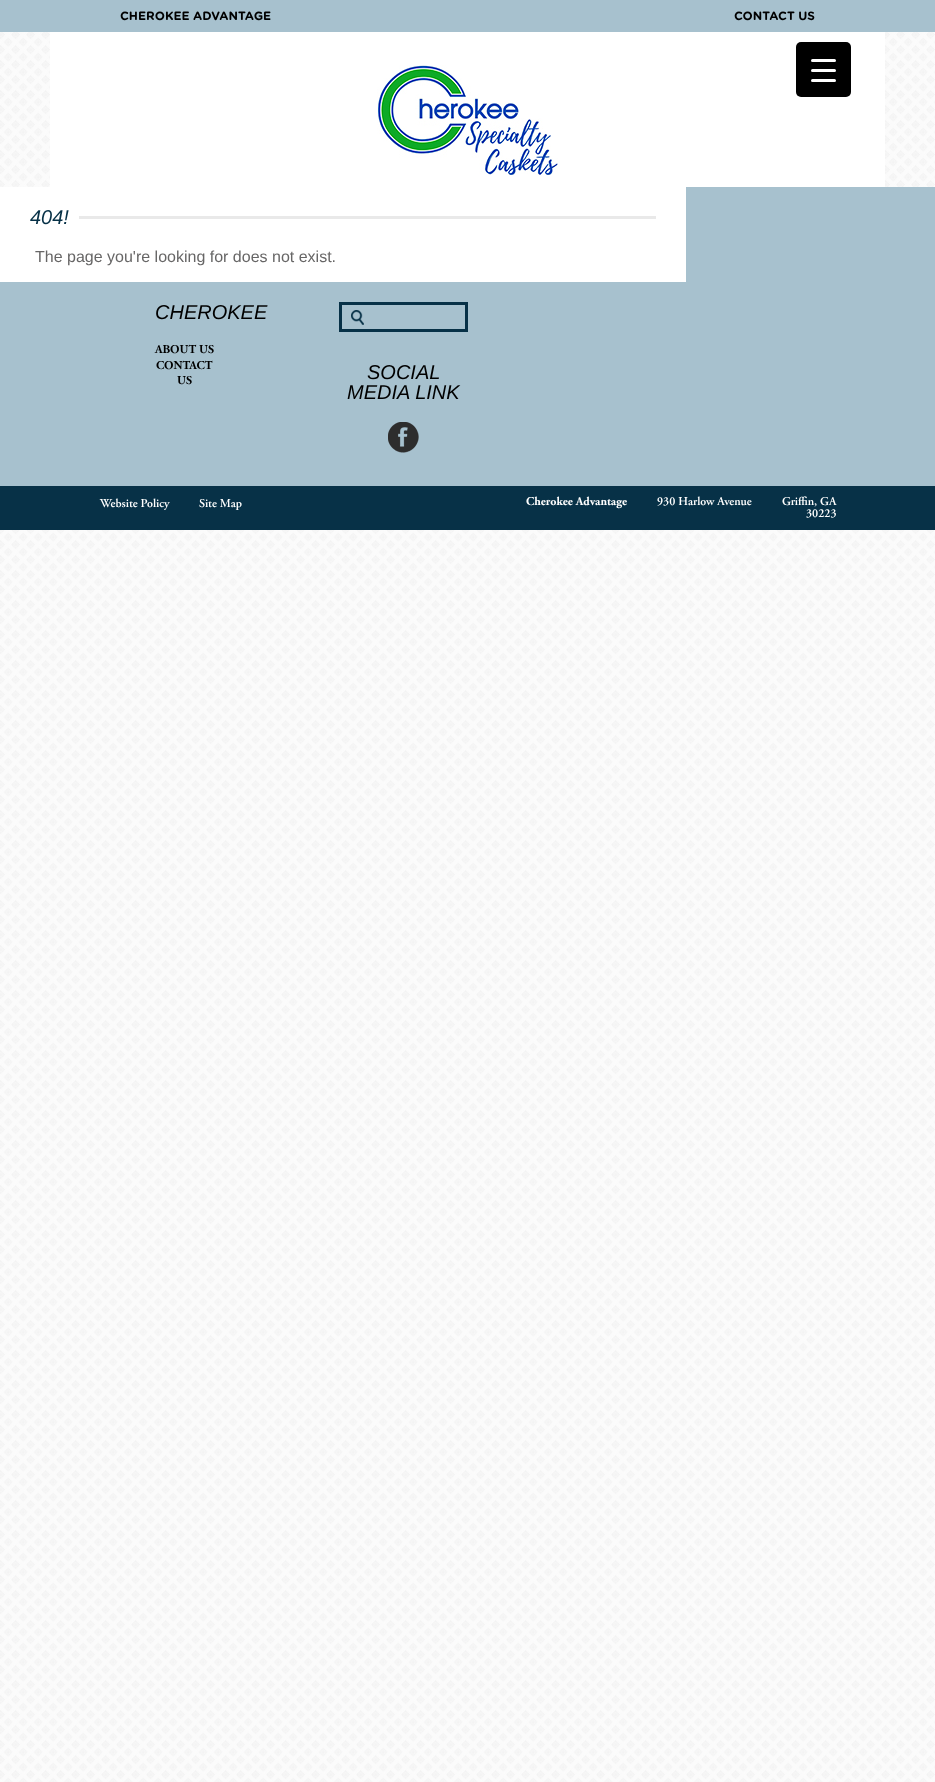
(async () => {
const canvas = document.querySelector("canvas")
canvas.width = 935
canvas.height = 1782
const c = canvas.getContext("2d")
c.miterLimit = 4
c.fontKerning = "normal"
function T(s,x,y){c.fillText(s,x,y)}
function R(x,y,w,h){c.fillRect(x,y,w,h)}
function Q(x,y,w,h,r){c.beginPath();c.roundRect(x,y,w,h,r);c.fill()}
async function I(src,x,y,w,h){const img=new Image();img.src=src;await img.decode();c.drawImage(img,x,y,w,h)}
c.fillStyle="#fff"
R(0,0,935,1782)
await I("1.png",0,32,935,1750)
c.fillStyle="#a7c1ce"
R(0,0,935,32)
c.font="bold 12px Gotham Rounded"
c.fillStyle="#000"
T("CHEROKEE ADVANTAGE",120,20)
T("CONTACT US",734,20)
c.fillStyle="#fff"
R(50,32,835,155)
await I("2.png",377,65,181,110)
c.fillStyle="#000"
Q(796,42,55,55,5)
c.fillStyle="#fff"
Q(811,69,25,3,1.5)
Q(811,59,25,3,1.5)
Q(811,79,25,3,1.5)
c.fillStyle="#a7c1ce"
R(0,187,935,299)
c.fillStyle="#fff"
R(0,187,686,95)
c.fillStyle="#e9e9e9"
R(79,216,577,3)
c.font="italic 20px Liberation Sans"
c.fillStyle="#073147"
T("404!",30,224)
c.font="16px Liberation Sans"
c.fillStyle="#676666"
T("The page you're looking for does not exist.",35,262)
c.font="italic 20px Liberation Sans"
c.fillStyle="#000"
T("CHEROKEE",155,319)
c.font="bold 12px Adobe Garamond"
T("ABOUT US",155,353)
T("CONTACT",156,369)
T("US",177,384)
c.strokeStyle="#073147"
c.lineWidth=3
c.strokeRect(340.5,303.5,126,27)
await I("3.png",351,310,13,15)
c.font="italic 20px Liberation Sans"
T("SOCIAL",367,379)
T("MEDIA LINK",347,399)
await I("4.png",388,422,31,31)
c.fillStyle="#073147"
R(0,486,935,44)
c.font="600 12px Adobe Garamond"
c.fillStyle="#fff"
T("Website Policy",100,507)
T("Site Map",199,507)
c.font="bold 12px Adobe Garamond"
T("Cherokee Advantage",526,505)
c.font="600 12px Adobe Garamond"
T("930 Harlow Avenue",657,505)
T("Griffin, GA",782,505)
T("30223",806,517)
})()
